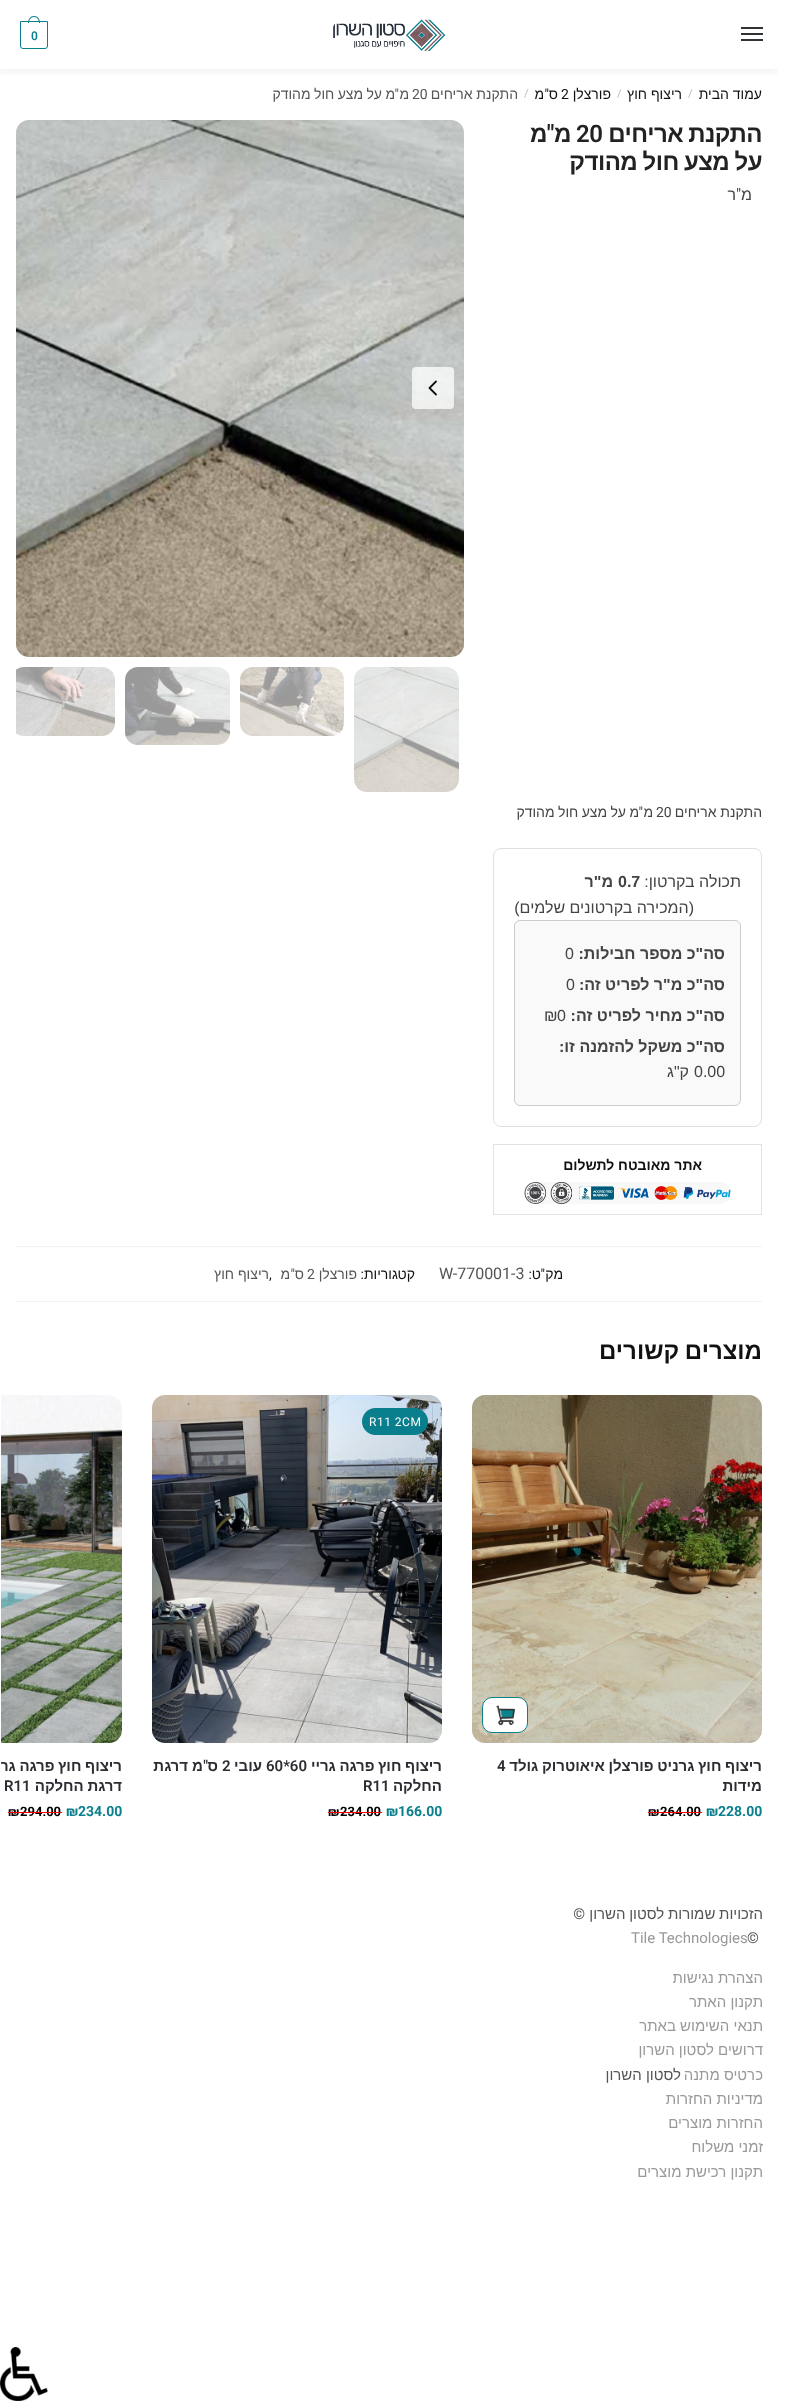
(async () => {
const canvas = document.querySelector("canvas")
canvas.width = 793
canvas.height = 2404
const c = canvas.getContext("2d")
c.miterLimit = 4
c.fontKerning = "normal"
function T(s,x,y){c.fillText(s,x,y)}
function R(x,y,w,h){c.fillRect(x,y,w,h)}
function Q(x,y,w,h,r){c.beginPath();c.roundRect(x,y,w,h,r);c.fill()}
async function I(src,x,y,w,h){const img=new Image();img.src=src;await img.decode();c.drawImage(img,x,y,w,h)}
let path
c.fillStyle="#fff"
R(0,0,793,2404)
c.save()
c.beginPath()
c.rect(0,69,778,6)
c.clip()
c.fillStyle="#00000014"
c.filter="blur(7.5px)"
c.beginPath()
c.rect(0,1,778,69)
c.fill()
c.filter="none"
c.restore()
R(778,0,9,75)
c.fillStyle="#2f3336"
R(741,27,22,2)
R(741,33,22,2)
R(741,39,22,2)
await I("1.png",333,19,113,32)
c.beginPath()
c.roundRect(20.5,21.5,27,27,[0,0,2.5,2.5])
c.strokeStyle="#097f8d"
c.stroke()
c.fillStyle="#097f8d"
path = new Path2D("M34 16c4 0 6 3.5 6 7h-12c0-3.5 2-7 6-7zm0 1c3.5 0 5 3 5 6h-10c0-3 1.5-6 5-6z")
c.fill(path,"evenodd")
c.letterSpacing="-1px"
c.font="600 12px Roboto"
c.fillStyle="#0b818d"
T("0",31,40)
c.letterSpacing="0px"
c.direction="rtl"
c.font="14px Liberation Sans"
c.fillStyle="#111"
T("עמוד הבית",762,99)
c.direction="ltr"
c.font="11px Roboto"
c.fillStyle="#bbb"
T("/",688,97)
c.direction="rtl"
c.font="14px Liberation Sans"
c.fillStyle="#111"
T("ריצוף חוץ",682,99)
c.direction="ltr"
c.font="11px Roboto"
c.fillStyle="#bbb"
T("/",617,97)
c.direction="rtl"
c.font="14px Liberation Sans"
c.fillStyle="#111"
T("פורצלן",611,99)
c.direction="ltr"
c.font="14px Roboto"
T("2",561,99)
c.direction="rtl"
c.font="14px Liberation Sans"
T("ס",558,99)
c.font="14px Roboto"
T("\"",549,99)
c.font="14px Liberation Sans"
T("מ",544,99)
c.direction="ltr"
c.font="11px Roboto"
c.fillStyle="#bbb"
T("/",524,97)
c.direction="rtl"
c.font="14px Liberation Sans"
c.fillStyle="#555"
T("התקנת אריחים",518,99)
c.direction="ltr"
c.font="14px Roboto"
T("20",412,99)
c.direction="rtl"
c.font="14px Liberation Sans"
T("מ",409,99)
c.font="14px Roboto"
T("\"",399,99)
c.wordSpacing="-0.5px"
c.font="14px Liberation Sans"
T("מ על מצע חול מהודק",395,99)
c.letterSpacing="-0.5px"
c.wordSpacing="-1px"
c.font="bold 24px Liberation Sans"
c.fillStyle="#222"
T("התקנת אריחים",762,142)
c.wordSpacing="0px"
c.direction="ltr"
c.font="600 24px Roboto"
T("20",576,142)
c.direction="rtl"
c.font="bold 24px Liberation Sans"
T("מ",571,142)
c.font="600 24px Roboto"
T("\"",554,142)
c.font="bold 24px Liberation Sans"
T("מ",547,142)
c.save()
c.beginPath()
c.rect(16,120,746,1126)
c.clip()
c.wordSpacing="-1px"
T("על מצע חול מהודק",762,170)
c.restore()
c.letterSpacing="0px"
c.font="16px Liberation Sans"
c.fillStyle="#444"
T("מ",752,200)
c.font="16px Roboto"
T("\"",741,200)
c.font="16px Liberation Sans"
T("ר",736,200)
c.font="14px Liberation Sans"
T("התקנת אריחים",762,817)
c.direction="ltr"
c.font="14px Roboto"
T("20",656,817)
c.direction="rtl"
c.font="14px Liberation Sans"
T("מ",653,817)
c.font="14px Roboto"
T("\"",643,817)
c.wordSpacing="-0.5px"
c.font="14px Liberation Sans"
T("מ על מצע חול מהודק",639,817)
c.beginPath()
c.roundRect(493.5,848.5,268,278,7.5)
c.strokeStyle="#e0e0e0"
c.stroke()
c.wordSpacing="0px"
c.font="16px Liberation Sans"
T("תכולה בקרטון:",741,887)
c.direction="ltr"
c.font="bold 16px Liberation Sans"
T("0.7",618,887)
c.direction="rtl"
T("מ\"ר",613,887)
c.font="16px Liberation Sans"
T("(המכירה בקרטונים שלמים)",694,913)
c.fillStyle="#f9f9f9"
c.beginPath()
c.roundRect(514.5,920.5,226,185,5.5)
c.fill()
c.strokeStyle="#ccc"
c.stroke()
c.font="bold 16px Liberation Sans"
c.fillStyle="#444"
T("סה\"כ מספר חבילות:",725,959)
c.direction="ltr"
c.font="16px Liberation Sans"
T("0",565,959)
c.direction="rtl"
c.font="bold 16px Liberation Sans"
T("סה\"כ מ\"ר לפריט זה:",725,990)
c.direction="ltr"
c.font="16px Liberation Sans"
T("0",566,990)
c.direction="rtl"
c.font="bold 16px Liberation Sans"
T("סה\"כ מחיר לפריט זה:",725,1021)
c.direction="ltr"
c.font="16px Liberation Sans"
T("0",557,1021)
T("₪",544,1021)
c.direction="rtl"
c.font="bold 16px Liberation Sans"
T("סה\"כ משקל להזמנה זו:",725,1052)
c.direction="ltr"
c.font="16px Liberation Sans"
T("0.00",694,1077)
c.direction="rtl"
T("ק\"ג",689,1077)
c.strokeStyle="#e2e2e2"
c.strokeRect(493.5,1144.5,268,70)
c.font="bold 14px Liberation Sans"
c.fillStyle="#111"
T("אתר מאובטח לתשלום",702,1170)
await I("2.png",524,1182,207,22)
await I("3.png",16,120,448,537)
c.fillStyle="#ffffffbf"
Q(412,367,42,42,4)
path = new Path2D("M436 394.5l-6.5-6.5l6.5-6.5")
c.strokeStyle="#111"
c.lineWidth=1.8
c.lineCap="round"
c.lineJoin="round"
c.stroke(path)
await I("4.png",354,667,105,125)
await I("5.png",240,667,104,69)
await I("6.png",125,667,105,78)
await I("7.png",16,667,99,69)
c.fillStyle="#f2f2f2"
R(16,1246,746,1)
R(16,1301,746,1)
c.font="14px Liberation Sans"
c.fillStyle="#111"
T("מק",563,1279)
c.font="14px Roboto"
T("\"",545,1279)
c.font="14px Liberation Sans"
T("ט",541,1279)
c.font="14px Roboto"
T(":",532,1279)
c.direction="ltr"
c.font="16px Roboto"
c.fillStyle="#555"
T("W-770001-3",439,1279)
c.direction="rtl"
c.font="14px Liberation Sans"
c.fillStyle="#111"
T("קטגוריות",415,1279)
c.font="14px Roboto"
T(":",364,1279)
c.font="14px Liberation Sans"
c.fillStyle="#555"
T("פורצלן",357,1279)
c.direction="ltr"
c.font="14px Roboto"
T("2",307,1279)
c.direction="rtl"
c.font="14px Liberation Sans"
T("ס",304,1279)
c.font="14px Roboto"
T("\"",295,1279)
c.font="14px Liberation Sans"
T("מ",290,1279)
c.direction="ltr"
c.font="14px Roboto"
c.fillStyle="#111"
T(",",269,1279)
c.direction="rtl"
c.font="14px Liberation Sans"
c.fillStyle="#555"
T("ריצוף חוץ",269,1279)
c.wordSpacing="-1px"
c.font="bold 24px Liberation Sans"
c.fillStyle="#111"
T("מוצרים קשורים",762,1359)
await I("8.png",472,1395,290,348)
c.fillStyle="#fff"
c.beginPath()
c.roundRect(482.5,1697.5,45,35,9.5)
c.fill()
c.strokeStyle="#0b818d"
c.lineWidth=1
c.lineJoin="miter"
c.stroke()
await I("9.png",496,1705,19,21)
c.wordSpacing="-0.5px"
c.font="bold 15px Liberation Sans"
c.fillStyle="#2c2d33"
T("ריצוף חוץ גרניט פורצלן איאוטרוק גולד",762,1771)
c.wordSpacing="0px"
c.direction="ltr"
c.font="600 15px Roboto"
T("4",497,1771)
c.direction="rtl"
c.font="bold 15px Liberation Sans"
T("מידות",762,1791)
c.direction="ltr"
c.font="bold 14px Roboto"
c.fillStyle="#0b818d"
T("228.00",718,1816)
T("₪",706,1816)
c.font="bold 13px Roboto"
c.fillStyle="#000"
T("264.00",660,1816)
T("₪",648,1816)
c.fillStyle="#f00"
R(660,1812,42,1)
R(648,1812,12,1)
await I("10.png",152,1395,290,348)
c.fillStyle="#097f8d"
Q(362,1408,66,27,13.5)
c.letterSpacing="0.5px"
c.font="12px Roboto"
c.fillStyle="#fff"
T("R11 2CM",369,1426)
c.letterSpacing="0px"
c.wordSpacing="-0.5px"
c.direction="rtl"
c.font="bold 15px Liberation Sans"
c.fillStyle="#2c2d33"
T("ריצוף חוץ פרגה גריי",442,1771)
c.wordSpacing="0px"
c.direction="ltr"
c.font="600 15px Roboto"
T("60*60",266,1771)
c.direction="rtl"
c.font="bold 15px Liberation Sans"
T("עובי",262,1771)
c.direction="ltr"
c.font="600 15px Roboto"
T("2",222,1771)
c.direction="rtl"
c.font="bold 15px Liberation Sans"
T("ס",218,1771)
c.font="600 15px Roboto"
T("\"",208,1771)
c.font="bold 15px Liberation Sans"
T("מ דרגת",203,1771)
T("החלקה",442,1791)
c.direction="ltr"
c.font="600 15px Roboto"
T("R11",363,1791)
c.font="bold 14px Roboto"
c.fillStyle="#0b818d"
T("166.00",398,1816)
T("₪",386,1816)
c.font="bold 13px Roboto"
c.fillStyle="#000"
T("234.00",340,1816)
T("₪",328,1816)
c.fillStyle="#f00"
R(340,1812,42,1)
R(328,1812,12,1)
await I("11.png",1,1395,121,348)
c.save()
c.beginPath()
c.rect(1,1390,776,480)
c.clip()
c.wordSpacing="-0.5px"
c.direction="rtl"
c.font="bold 15px Liberation Sans"
c.fillStyle="#2c2d33"
T("ריצוף חוץ פרגה גריי",122,1771)
c.restore()
c.wordSpacing="-0.5px"
c.direction="rtl"
c.font="bold 15px Liberation Sans"
c.fillStyle="#2c2d33"
T("דרגת החלקה",122,1791)
c.wordSpacing="0px"
c.direction="ltr"
c.font="600 15px Roboto"
T("R11",4,1791)
c.font="bold 14px Roboto"
c.fillStyle="#0b818d"
T("234.00",78,1816)
T("₪",66,1816)
c.font="bold 13px Roboto"
c.fillStyle="#000"
T("294.00",20,1816)
T("₪",8,1816)
c.fillStyle="#f00"
R(20,1812,42,1)
R(8,1812,12,1)
c.wordSpacing="-0.5px"
c.direction="rtl"
c.font="15px Liberation Sans"
c.fillStyle="#555"
T("הזכויות שמורות לסטון השרון",763,1919)
c.wordSpacing="0px"
c.font="15px Roboto"
T("©",585,1919)
c.direction="ltr"
T("©",747,1943)
c.fillStyle="#999"
T("Tile Technologies",631,1943)
c.direction="rtl"
c.font="15px Liberation Sans"
T("הצהרת נגישות",763,1983)
T("תקנון האתר",763,2007)
T("תנאי השימוש באתר",763,2031)
T("דרושים לסטון השרון",763,2055)
T("כרטיס מתנה",763,2080)
c.fillStyle="#555"
T("לסטון השרון",681,2080)
c.fillStyle="#999"
T("מדיניות החזרות",763,2104)
T("החזרות מוצרים",763,2128)
T("זמני משלוח",763,2152)
T("תקנון רכישת מוצרים",763,2177)
await I("12.png",0,2347,48,54)
})()
